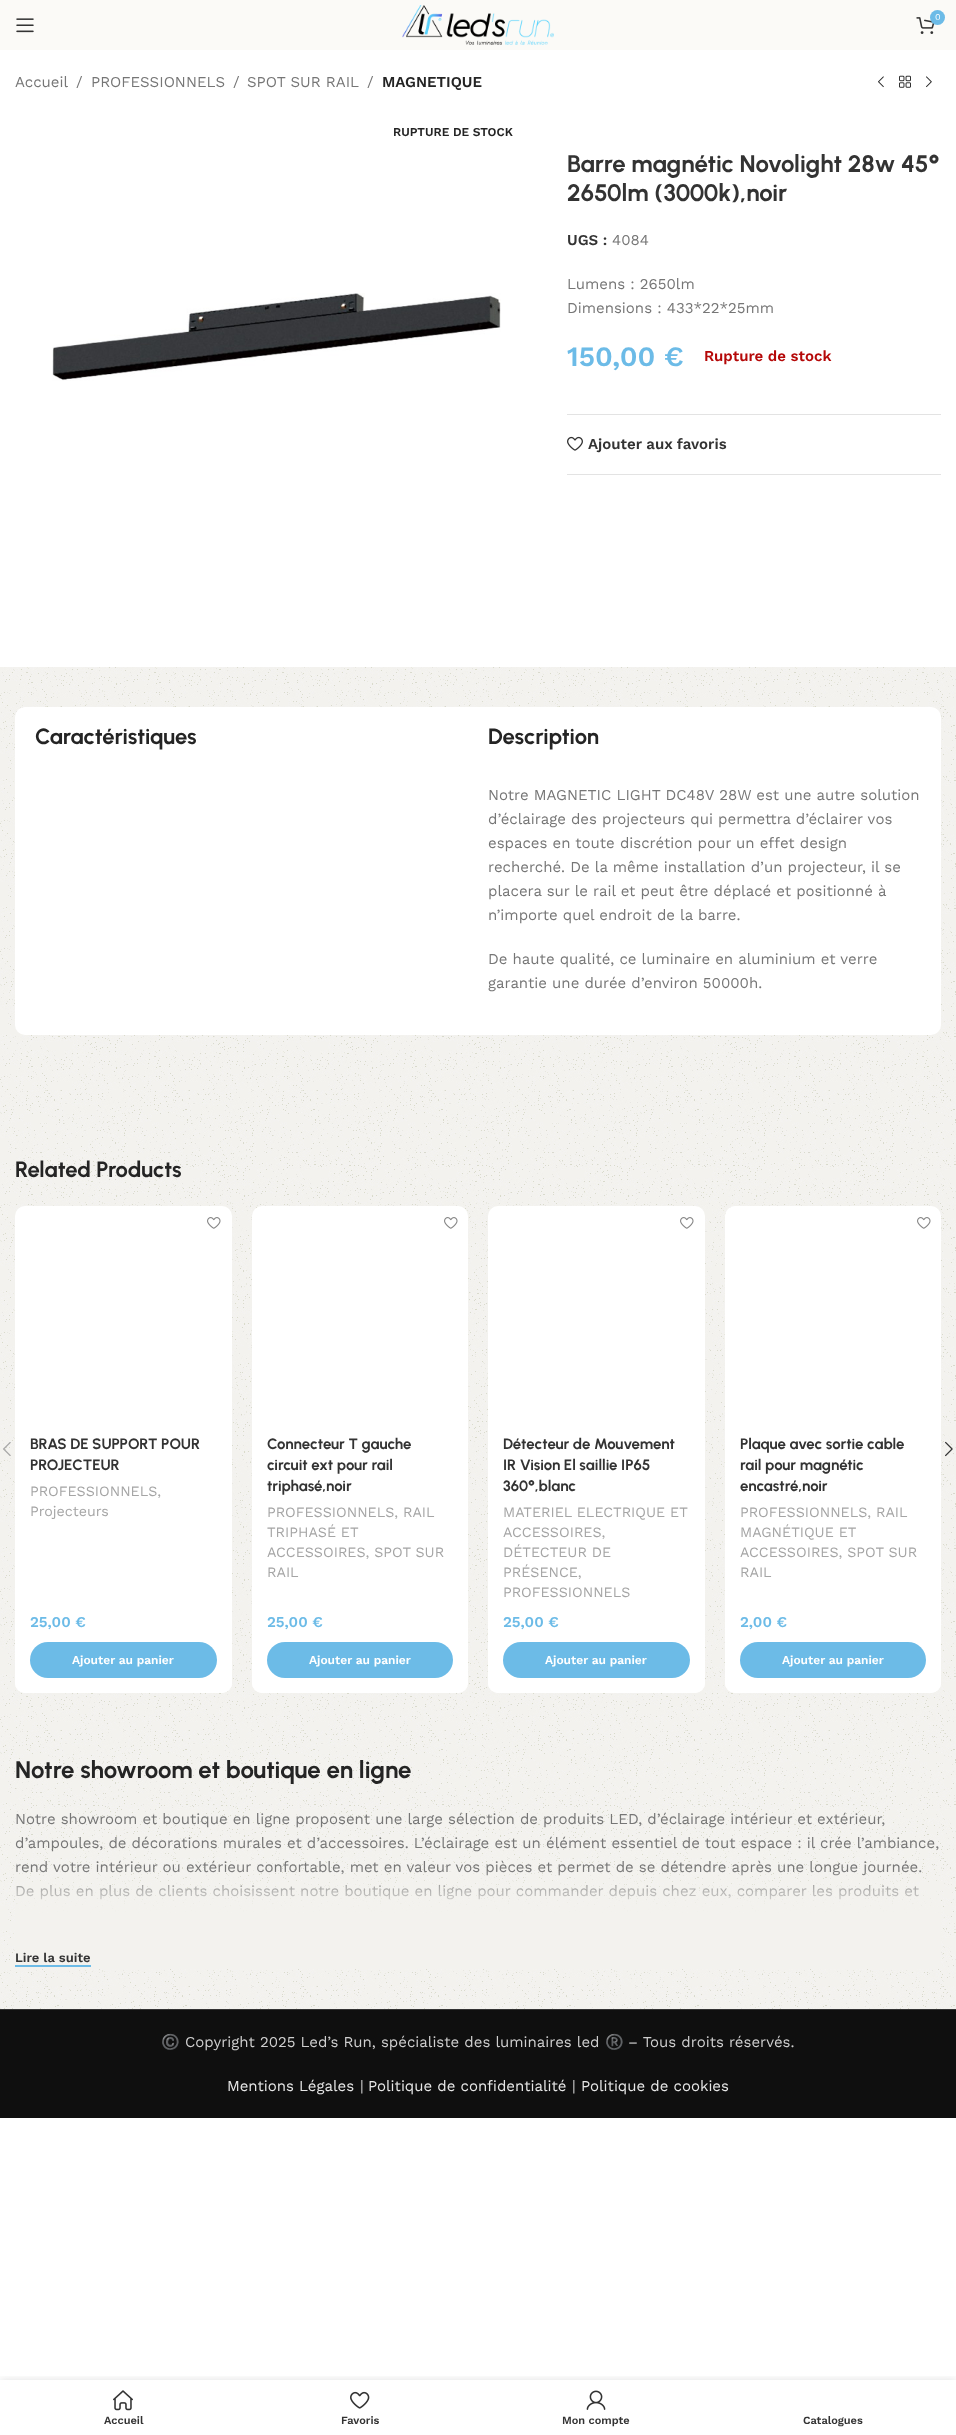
(async () => {
const canvas = document.querySelector("canvas")
canvas.width = 956
canvas.height = 2435
const c = canvas.getContext("2d")
c.miterLimit = 4
c.fontKerning = "normal"
function T(s,x,y){c.fillText(s,x,y)}
function R(x,y,w,h){c.fillRect(x,y,w,h)}
function Q(x,y,w,h,r){c.beginPath();c.roundRect(x,y,w,h,r);c.fill()}
async function I(src,x,y,w,h){const img=new Image();img.src=src;await img.decode();c.drawImage(img,x,y,w,h)}
let gradient
c.fillStyle="#fff"
R(0,0,956,2435)
c.fillStyle="#fbfaf7"
R(0,0,956,50)
await I("1.png",16,18,18,15)
await I("2.png",402,5,152,40)
await I("3.png",916,17,19,17)
c.fillStyle="#6cbbe7"
c.beginPath()
c.arc(937.5,17.5,7.5,0,7)
c.fill()
c.font="9px Work Sans"
c.fillStyle="#fff"
T("0",935,20)
await I("4.png",0,667,956,1342)
c.font="15px Work Sans"
c.fillStyle="#767676"
T("Accueil",15,87)
T("/",76,87)
T("PROFESSIONNELS",91,87)
T("/",233,87)
T("SPOT SUR RAIL",247,87)
T("/",367,87)
c.font="600 15px Work Sans"
c.fillStyle="#242424"
T("MAGNETIQUE",382,87)
await I("5.png",878,76,6,12)
await I("6.png",899,75,12,13)
await I("7.png",926,76,6,12)
c.font="600 12px Work Sans"
T("RUPTURE DE STOCK",393,136)
await I("8.png",52,293,449,88)
c.font="bold 24px Urbanist"
c.fillStyle="#333"
T("Barre magnétic Novolight 28w 45°",567,172)
T("2650lm (3000k),noir",567,201)
c.font="600 15px Work Sans"
T("UGS :",567,245)
c.font="15px Work Sans"
c.fillStyle="#767676"
T("4084",612,245)
T("Lumens : 2650lm",567,289)
T("Dimensions : 433*22*25mm",567,313)
c.font="600 28px Work Sans"
c.fillStyle="#6cbbe7"
T("150,00 €",567,366)
c.font="600 15px Work Sans"
c.fillStyle="#b50808"
T("Rupture de stock",704,361)
c.fillStyle="#e3e3e3"
R(567,414,374,1)
await I("9.png",567,436,16,15)
c.fillStyle="#333"
T("Ajouter aux favoris",588,449)
c.fillStyle="#e3e3e3"
R(567,474,374,1)
c.fillStyle="#fff"
Q(15,707,926,328,10)
c.font="bold 22px Urbanist"
c.fillStyle="#242424"
T("Caractéristiques",35,744)
T("Description",488,744)
c.font="15px Work Sans"
c.fillStyle="#767676"
T("Notre MAGNETIC LIGHT DC48V 28W est une autre solution",488,800)
T("d’éclairage des projecteurs qui permettra d’éclairer vos",488,824)
T("espaces en toute discrétion pour un effet design",488,848)
T("recherché. De la même installation d’un projecteur, il se",488,872)
T("placera sur le rail et peut être déplacé et positionné à",488,896)
T("n’importe quel endroit de la barre.",488,920)
T("De haute qualité, ce luminaire en aluminium et verre",488,964)
T("garantie une durée d’environ 50000h.",488,988)
c.font="bold 22px Urbanist"
c.fillStyle="#242424"
T("Related Products",15,1177)
c.fillStyle="#fff"
Q(15,1206,217,487,10)
await I("10.png",207,1217,14,12)
c.beginPath()
c.roundRect(15,1422,217,271,[0,0,10,10])
c.fill()
c.font="bold 15px Urbanist"
c.fillStyle="#333"
T("BRAS DE SUPPORT POUR",30,1449)
T("PROJECTEUR",30,1470)
c.font="14.25px Work Sans"
c.fillStyle="#a5a5a5"
T("PROFESSIONNELS,",30,1496)
T("Projecteurs",30,1516)
c.font="600 15px Work Sans"
c.fillStyle="#6cbbe7"
T("25,00 €",30,1627)
Q(30,1642,187,36,18)
c.font="600 12px Work Sans"
c.fillStyle="#fff"
T("Ajouter au panier",72,1664)
Q(252,1206,216,487,10)
await I("10.png",444,1217,14,12)
c.beginPath()
c.roundRect(252,1422,216,271,[0,0,10,10])
c.fill()
c.font="bold 15px Urbanist"
c.fillStyle="#333"
T("Connecteur T gauche",267,1449)
T("circuit ext pour rail",267,1470)
T("triphasé,noir",267,1491)
c.font="14.25px Work Sans"
c.fillStyle="#a5a5a5"
T("PROFESSIONNELS, RAIL",267,1517)
T("TRIPHASÉ ET",267,1537)
T("ACCESSOIRES, SPOT SUR",267,1557)
T("RAIL",267,1577)
c.font="600 15px Work Sans"
c.fillStyle="#6cbbe7"
T("25,00 €",267,1627)
Q(267,1642,186,36,18)
c.font="600 12px Work Sans"
c.fillStyle="#fff"
T("Ajouter au panier",309,1664)
Q(488,1206,217,487,10)
await I("10.png",680,1217,14,12)
c.beginPath()
c.roundRect(488,1422,217,271,[0,0,10,10])
c.fill()
c.font="bold 15px Urbanist"
c.fillStyle="#333"
T("Détecteur de Mouvement",503,1449)
T("IR Vision El saillie IP65",503,1470)
T("360°,blanc",503,1491)
c.font="14.25px Work Sans"
c.fillStyle="#a5a5a5"
T("MATERIEL ELECTRIQUE ET",503,1517)
T("ACCESSOIRES,",503,1537)
T("DÉTECTEUR DE",503,1557)
T("PRÉSENCE,",503,1577)
T("PROFESSIONNELS",503,1597)
c.font="600 15px Work Sans"
c.fillStyle="#6cbbe7"
T("25,00 €",503,1627)
Q(503,1642,187,36,18)
c.font="600 12px Work Sans"
c.fillStyle="#fff"
T("Ajouter au panier",545,1664)
Q(725,1206,216,487,10)
await I("10.png",917,1217,14,12)
c.beginPath()
c.roundRect(725,1422,216,271,[0,0,10,10])
c.fill()
c.font="bold 15px Urbanist"
c.fillStyle="#333"
T("Plaque avec sortie cable",740,1449)
T("rail pour magnétic",740,1470)
T("encastré,noir",740,1491)
c.font="14.25px Work Sans"
c.fillStyle="#a5a5a5"
T("PROFESSIONNELS, RAIL",740,1517)
T("MAGNÉTIQUE ET",740,1537)
T("ACCESSOIRES, SPOT SUR",740,1557)
T("RAIL",740,1577)
c.font="600 15px Work Sans"
c.fillStyle="#6cbbe7"
T("2,00 €",740,1627)
Q(740,1642,186,36,18)
c.font="600 12px Work Sans"
c.fillStyle="#fff"
T("Ajouter au panier",782,1664)
await I("11.png",3,1442,8,14)
await I("12.png",945,1441,8,16)
c.font="bold 24px Urbanist"
c.fillStyle="#242424"
T("Notre showroom et boutique en ligne",15,1778)
c.font="15px Work Sans"
c.fillStyle="#767676"
T("Notre showroom et boutique en ligne proposent une large sélection de produits LED, d’éclairage intérieur et extérieur,",15,1824)
T("d’ampoules, de décorations murales et d’accessoires. L’éclairage est un élément essentiel de tout espace : il crée l’ambiance,",15,1848)
T("rend votre intérieur ou extérieur confortable, met en valeur vos pièces et permet de se détendre après une longue journée.",15,1872)
T("De plus en plus de clients choisissent notre boutique en ligne pour commander depuis chez eux, comparer les produits et",15,1896)
gradient = c.createLinearGradient(478,1869,478,1969)
gradient.addColorStop(0,"#f3f2ee00")
gradient.addColorStop(.45,"#f3f2ee")
c.fillStyle = gradient
R(15,1870,926,99)
c.fillStyle="#6cbbe7"
R(15,1965,76,2)
c.font="600 13px Work Sans"
c.fillStyle="#333"
T("Lire la suite",15,1962)
c.fillStyle="#0f0f0f"
R(0,2010,956,108)
c.fillStyle="#333"
R(0,2009,956,1)
c.font="15px Noto Color Emoji"
c.fillStyle="#cfcfcf"
T("©️",161,2047)
c.font="15px Work Sans"
T("Copyright 2025 Led’s Run, spécialiste des luminaires led",185,2047)
c.font="15px Noto Color Emoji"
T("®️",605,2047)
c.font="15px Work Sans"
T("– Tous droits réservés.",628,2047)
c.fillStyle="#e7e7e7"
T("Mentions Légales",227,2091)
c.fillStyle="#cfcfcf"
T("|",360,2091)
c.fillStyle="#e7e7e7"
T("Politique de confidentialité",368,2091)
c.fillStyle="#cfcfcf"
T("|",572,2091)
c.fillStyle="#e7e7e7"
T("Politique de cookies",581,2091)
c.save()
c.beginPath()
c.rect(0,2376,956,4)
c.clip()
c.fillStyle="#0000001f"
c.filter="blur(4.5px)"
c.beginPath()
c.rect(0,2380,956,55)
c.fill()
c.filter="none"
c.restore()
await I("13.png",113,2390,20,21)
c.font="600 11px Work Sans"
c.fillStyle="#333"
T("Accueil",104,2424)
await I("14.png",350,2391,20,18)
T("Favoris",341,2424)
await I("15.png",586,2390,20,20)
T("Mon compte",562,2424)
T("Catalogues",803,2424)
})()
